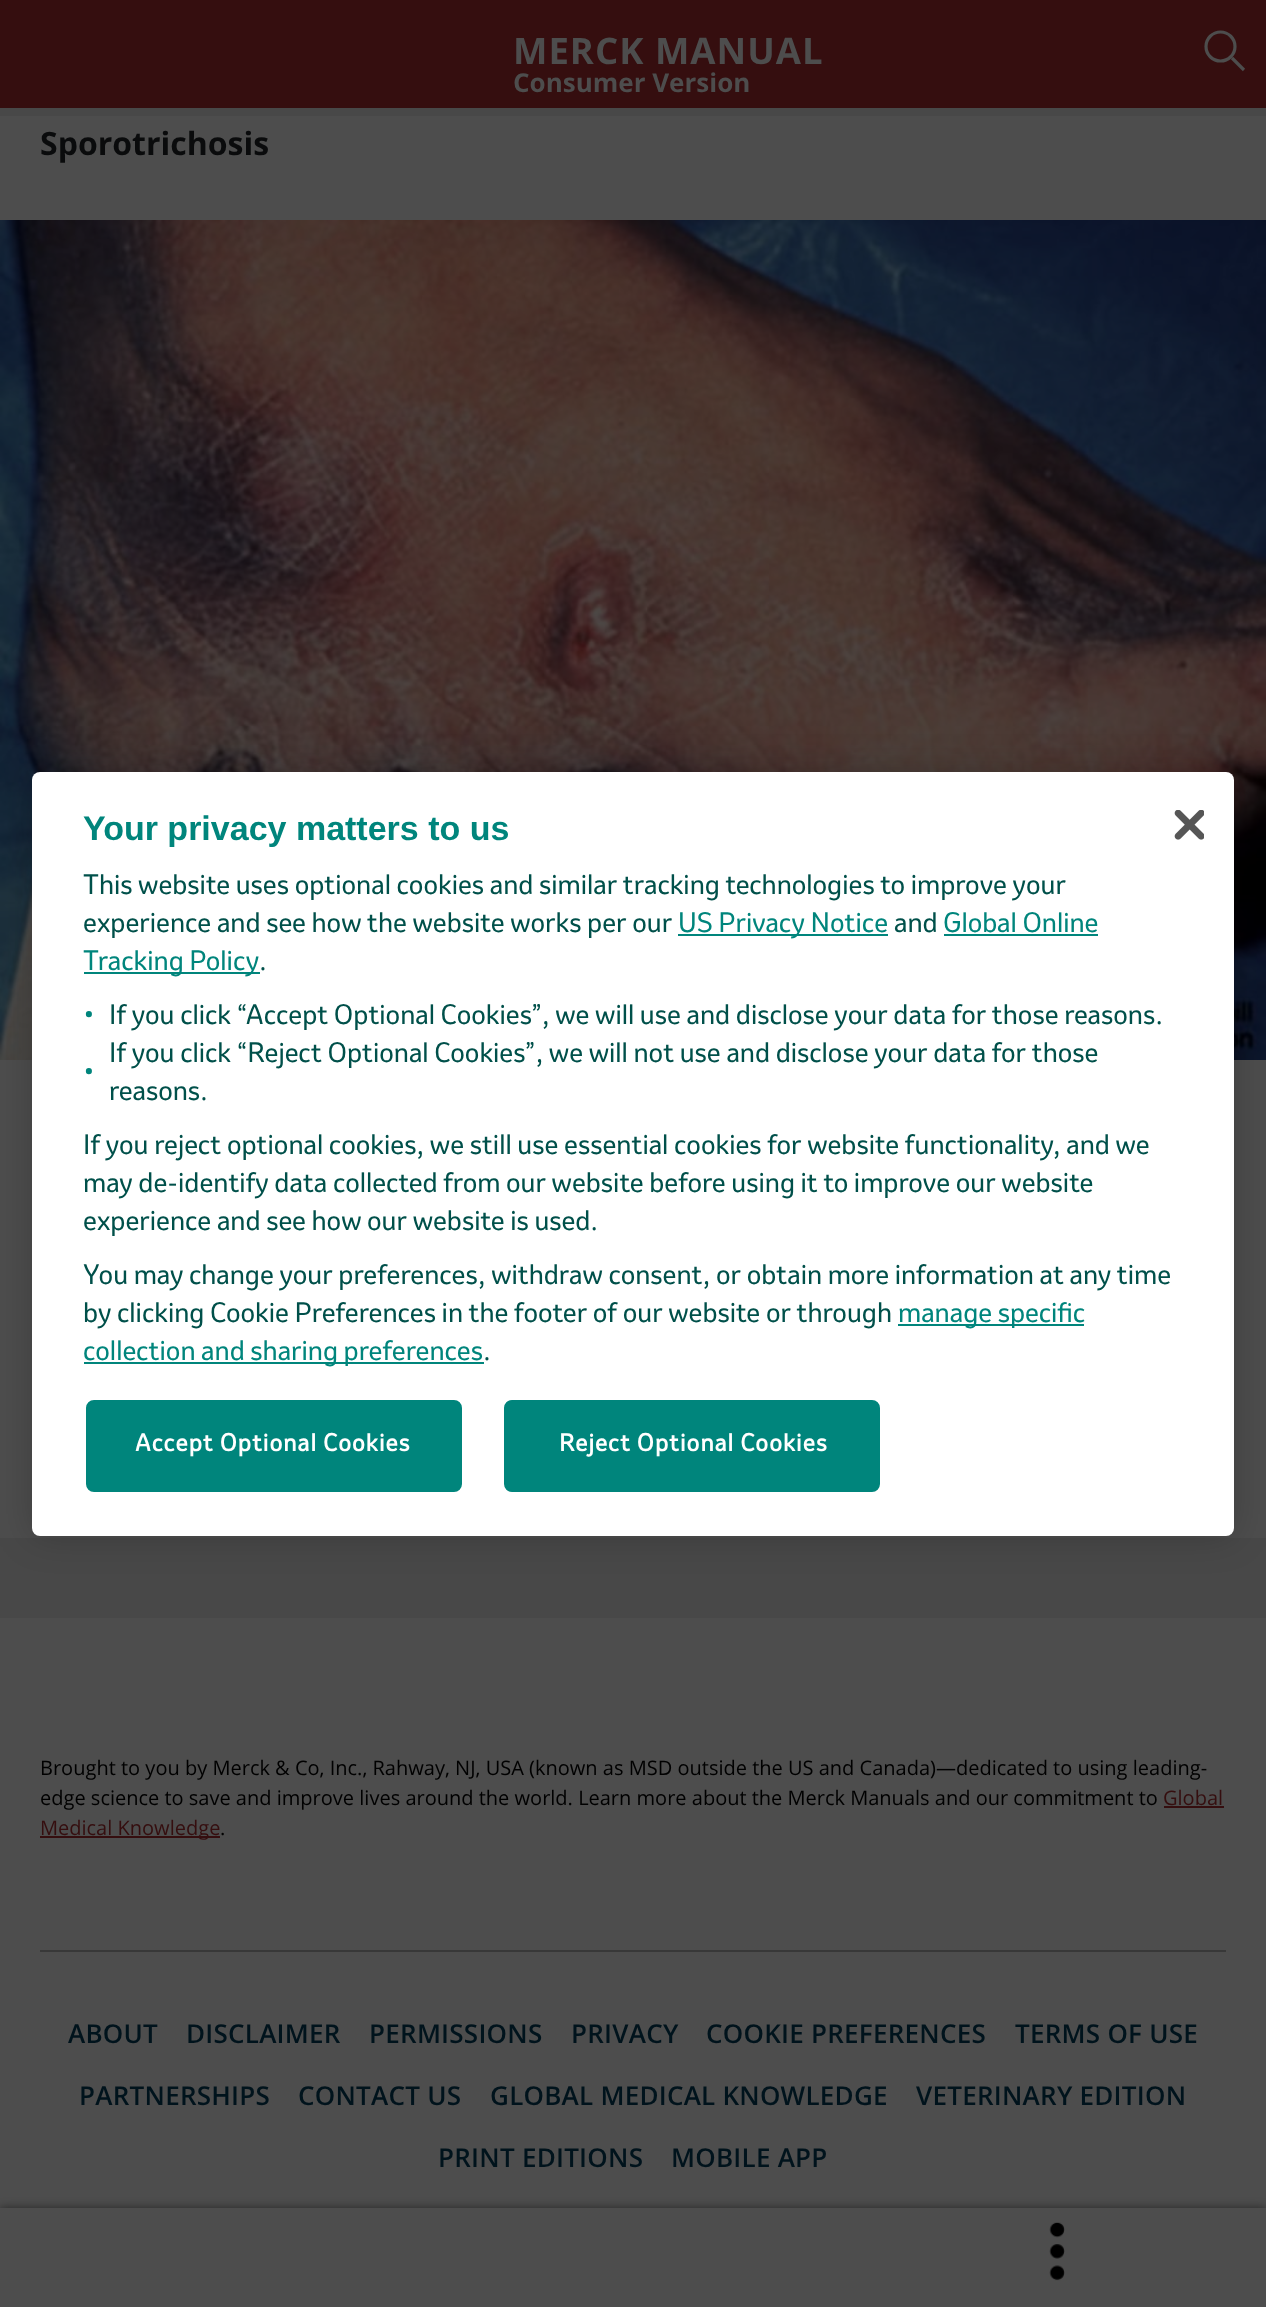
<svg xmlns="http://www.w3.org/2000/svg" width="1266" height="2307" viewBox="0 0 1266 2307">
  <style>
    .t1 { font: bold 36.5px Open Sans; letter-spacing: 1px; fill: #4d4d4d; }
    .t2 { font: bold 26px Open Sans; fill: #4d4d4d; }
    .t3 { font: bold 32px Open Sans; fill: #0a0b0c; }
    .t4 { font: 20px Open Sans; fill: #000; }
    .t5 { font: 20px Open Sans; fill: #350e0f; }
    .t6 { font: 600 26px Open Sans; letter-spacing: 0.25px; fill: #00131c; }
    .t7 { font: bold 34px Liberation Sans; fill: #00857c; }
    .t8 { font: 26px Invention; fill: #00504a; }
    .t9 { font: 26px Invention; fill: #00857c; }
    .t10 { font: 31px Invention; fill: #00857c; }
    .t11 { font: bold 22.75px Invention; letter-spacing: 1.1px; fill: #fff; }
  </style>
  <rect width="100%" height="100%" fill="#484848"/>
  <rect x="0" y="0" width="1266" height="108" fill="#350e0f"/>
  <text x="513" y="64" class="t1">MERCK MANUAL</text>
  <text x="513" y="92" class="t2">Consumer Version</text>
  <circle cx="1220.5" cy="46.5" r="14.5" fill="none" stroke="#4d4d4d" stroke-width="3.2"/>
  <path d="M1244 70L1232 58" fill="none" stroke="#4d4d4d" stroke-width="3.2"/>
  <rect x="0" y="116" width="1266" height="1422" fill="#4d4d4d"/>
  <text x="40" y="155" class="t3">Sporotrichosis</text>
  <image x="0" y="220" width="1266" height="840" href="images/1.png"/>
  <rect x="0" y="1618" width="1266" height="590" fill="#4d4d4d"/>
  <rect x="40" y="1950" width="1186" height="2" fill="#383838"/>
  <text x="40" y="1775" class="t4">Brought to you by Merck &amp; Co, Inc., Rahway, NJ, USA (known as MSD outside the US and Canada)—dedicated to using leading-</text>
  <text x="40" y="1805" class="t4">edge science to save and improve lives around the world. Learn more about the Merck Manuals and our commitment to</text>
  <text x="1163" y="1805" class="t5">Global</text>
  <rect x="1164" y="1806" width="60" height="2" fill="#350e0f"/>
  <rect x="40" y="1836" width="180" height="2" fill="#350e0f"/>
  <text x="40" y="1835" class="t5">Medical Knowledge</text>
  <text x="220" y="1835" class="t4">.</text>
  <text x="68" y="2043" class="t6">ABOUT</text>
  <text x="186" y="2043" class="t6">DISCLAIMER</text>
  <text x="369" y="2043" class="t6">PERMISSIONS</text>
  <text x="571" y="2043" class="t6">PRIVACY</text>
  <text x="706" y="2043" class="t6">COOKIE PREFERENCES</text>
  <text x="1015" y="2043" class="t6">TERMS OF USE</text>
  <text x="79" y="2105" class="t6">PARTNERSHIPS</text>
  <text x="298" y="2105" class="t6">CONTACT US</text>
  <text x="490" y="2105" class="t6">GLOBAL MEDICAL KNOWLEDGE</text>
  <text x="916" y="2105" class="t6">VETERINARY EDITION</text>
  <text x="438" y="2167" class="t6">PRINT EDITIONS</text>
  <text x="671" y="2167" class="t6">MOBILE APP</text>
  <rect x="0" y="2208" width="1266" height="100" fill="#00000080" filter="blur(5px)"/>
  <rect x="0" y="2208" width="1266" height="99" fill="#4d4d4d"/>
  <image x="1049" y="2222" width="16" height="59" href="images/2.png"/>
  <rect x="32" y="772" width="1202" height="764" rx="8" fill="#00000033" filter="blur(18px)"/>
  <rect x="32" y="772" width="1202" height="764" rx="8" fill="#fff"/>
  <text x="83" y="840" class="t7">Your privacy matters to us</text>
  <text x="83" y="894" class="t8">This website uses optional cookies and similar tracking technologies to improve your</text>
  <text x="83" y="932" class="t8">experience and see how the website works per our</text>
  <rect x="678" y="934" width="210" height="2" fill="#00857c"/>
  <text x="678" y="932" class="t9">US Privacy Notice</text>
  <text x="894" y="932" class="t8">and</text>
  <text x="943" y="932" class="t9">Global Online</text>
  <rect x="944" y="934" width="154" height="2" fill="#00857c"/>
  <rect x="84" y="972" width="176" height="2" fill="#00857c"/>
  <text x="83" y="970" class="t9">Tracking Policy</text>
  <text x="259" y="970" class="t8">.</text>
  <text x="83" y="1023" class="t10">•</text>
  <text x="109" y="1024" class="t8">If you click “Accept Optional Cookies”, we will use and disclose your data for those reasons.</text>
  <text x="109" y="1062" class="t8">If you click “Reject Optional Cookies”, we will not use and disclose your data for those</text>
  <text x="83" y="1080" class="t10">•</text>
  <text x="109" y="1100" class="t8">reasons.</text>
  <text x="83" y="1154" class="t8">If you reject optional cookies, we still use essential cookies for website functionality, and we</text>
  <text x="83" y="1192" class="t8">may de-identify data collected from our website before using it to improve our website</text>
  <text x="83" y="1230" class="t8">experience and see how our website is used.</text>
  <text x="83" y="1284" class="t8">You may change your preferences, withdraw consent, or obtain more information at any time</text>
  <text x="83" y="1322" class="t8">by clicking Cookie Preferences in the footer of our website or through</text>
  <rect x="898" y="1324" width="186" height="2" fill="#00857c"/>
  <text x="898" y="1322" class="t9">manage specific</text>
  <rect x="84" y="1362" width="400" height="2" fill="#00857c"/>
  <text x="83" y="1360" class="t9">collection and sharing preferences</text>
  <text x="483" y="1360" class="t8">.</text>
  <image x="1174" y="810" width="30" height="30" href="images/3.png"/>
  <rect x="87" y="1401" width="374" height="90" rx="7" fill="#00857c" stroke="#00857c" stroke-width="2"/>
  <text x="135" y="1451" class="t11">Accept Optional Cookies</text>
  <rect x="505" y="1401" width="374" height="90" rx="7" fill="#00857c" stroke="#00857c" stroke-width="2"/>
  <text x="559" y="1451" class="t11">Reject Optional Cookies</text>
</svg>
